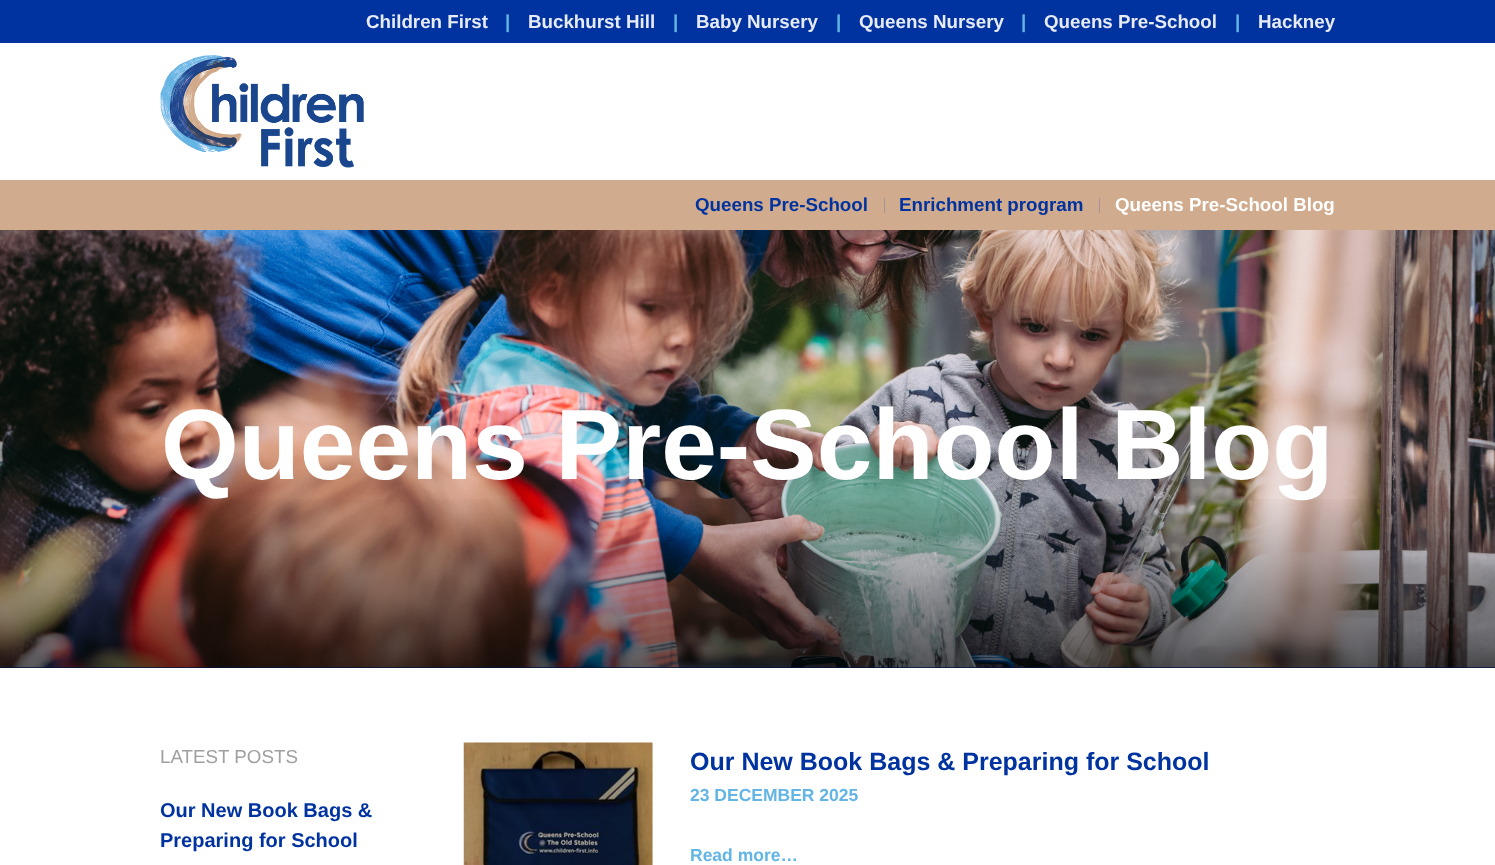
<svg xmlns="http://www.w3.org/2000/svg" width="1495" height="865" viewBox="0 0 1495 865">
  <style>
    .t1 { font: bold 18.75px Liberation Sans; fill: #e6ebf6; }
    .t2 { font: bold 18.75px Liberation Sans; fill: #62b5e5; }
    .t3 { font: bold 18.75px Liberation Sans; fill: #0033a0; }
    .t4 { font: bold 18.75px Liberation Sans; fill: #fff; }
    .t5 { font: bold 100px Liberation Sans; fill: #fff; }
    .t6 { font: 18.75px Liberation Sans; fill: #a0a0a0; }
    .t7 { font: bold 20px Liberation Sans; fill: #0033a0; }
    .t8 { font: bold 25px Liberation Sans; fill: #0033a0; }
    .t9 { font: bold 17.5px Liberation Sans; fill: #62b5e5; }
  </style>
  <defs>
    <linearGradient id="g1" gradientUnits="userSpaceOnUse" x1="748" y1="230" x2="748" y2="668"><stop offset="0" stop-color="#000" stop-opacity="0"/><stop offset="0.6" stop-color="#000" stop-opacity="0"/><stop offset="1" stop-color="#000" stop-opacity="0.6"/></linearGradient>
  </defs>
  <rect width="100%" height="100%" fill="#fff"/>
  <rect x="0" y="0" width="1495" height="43" fill="#0033a0"/>
  <text x="366" y="28" class="t1">Children First</text>
  <text x="505" y="28" class="t2">|</text>
  <text x="528" y="28" class="t1">Buckhurst Hill</text>
  <text x="673" y="28" class="t2">|</text>
  <text x="696" y="28" class="t1">Baby Nursery</text>
  <text x="836" y="28" class="t2">|</text>
  <text x="859" y="28" class="t1">Queens Nursery</text>
  <text x="1021" y="28" class="t2">|</text>
  <text x="1044" y="28" class="t1">Queens Pre-School</text>
  <text x="1235" y="28" class="t2">|</text>
  <text x="1258" y="28" class="t1">Hackney</text>
  <image x="160" y="55" width="204" height="113" href="images/1.png"/>
  <rect x="0" y="180" width="1495" height="50" fill="#d0ab8e"/>
  <text x="695" y="211" class="t3">Queens Pre-School</text>
  <rect x="884" y="198" width="1" height="15" fill="#a69392"/>
  <text x="899" y="211" class="t3">Enrichment program</text>
  <rect x="1099" y="198" width="1" height="15" fill="#a69392"/>
  <text x="1115" y="211" class="t4">Queens Pre-School Blog</text>
  <rect x="0" y="667" width="1495" height="1" fill="#0033a0"/>
  <image x="0" y="230" width="1495" height="438" href="images/2.png"/>
  <rect x="0" y="499" width="1495" height="169" fill="url(#g1)"/>
  <text x="161" y="479" class="t5">Queens Pre-School Blog</text>
  <text x="160" y="763" class="t6">LATEST POSTS</text>
  <text x="160" y="817" class="t7">Our New Book Bags &amp;</text>
  <text x="160" y="847" class="t7">Preparing for School</text>
  <rect x="652" y="743" width="1" height="122" fill="#f1f1f1"/>
  <image x="463" y="742" width="190" height="123" href="images/3.png"/>
  <text x="690" y="770" class="t8">Our New Book Bags &amp; Preparing for School</text>
  <text x="690" y="801" class="t9">23 DECEMBER 2025</text>
  <text x="690" y="861" class="t9">Read more…</text>
</svg>
